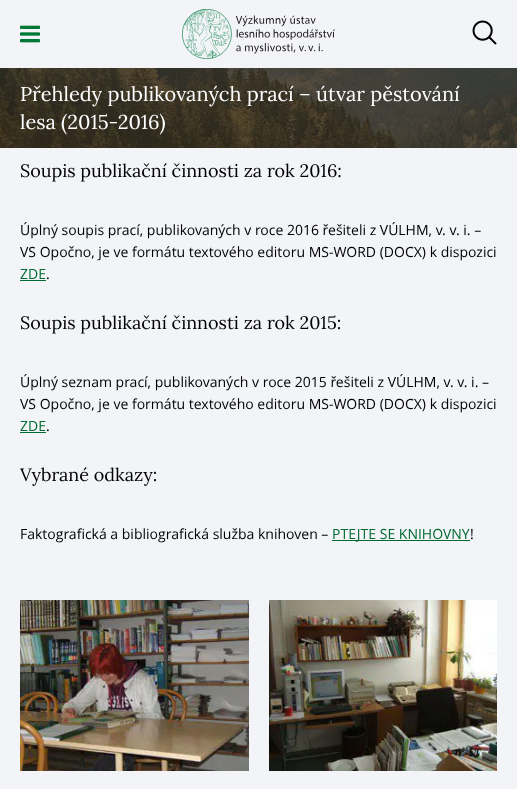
<svg xmlns="http://www.w3.org/2000/svg" width="517" height="789" viewBox="0 0 517 789">
  <style>
    .t1 { font: 20px Lora; fill: #fff; }
    .t2 { font: 18px Lora; fill: #000; }
    .t3 { font: 14px Open Sans; fill: #000; }
    .t4 { font: 14px Open Sans; fill: #006a30; }
  </style>
  <rect width="100%" height="100%" fill="#f2f4f7"/>
  <image x="20" y="25" width="20" height="18" href="images/1.png"/>
  <image x="182" y="9" width="153" height="50" href="images/2.png"/>
  <image x="472" y="20" width="25" height="25" href="images/3.png"/>
  <image x="0" y="68" width="517" height="80" href="images/4.png"/>
  <text x="20" y="101" class="t1">Přehledy publikovaných prací – útvar pěstování</text>
  <text x="20" y="129" class="t1">lesa (2015-2016)</text>
  <text x="20" y="177" class="t2">Soupis publikační činnosti za rok 2016:</text>
  <text x="20" y="235" class="t3">Úplný soupis prací, publikovaných v roce 2016 řešiteli z VÚLHM, v. v. i. –</text>
  <text x="20" y="257" class="t3">VS Opočno, je ve formátu textového editoru MS-WORD (DOCX) k dispozici</text>
  <text x="20" y="279" class="t4">ZDE</text>
  <rect x="20" y="280" width="26" height="1" fill="#006a30"/>
  <text x="46" y="279" class="t3">.</text>
  <text x="20" y="329" class="t2">Soupis publikační činnosti za rok 2015:</text>
  <text x="20" y="387" class="t3">Úplný seznam prací, publikovaných v roce 2015 řešiteli z VÚLHM, v. v. i. –</text>
  <text x="20" y="409" class="t3">VS Opočno, je ve formátu textového editoru MS-WORD (DOCX) k dispozici</text>
  <text x="20" y="431" class="t4">ZDE</text>
  <rect x="20" y="432" width="26" height="1" fill="#006a30"/>
  <text x="46" y="431" class="t3">.</text>
  <text x="20" y="481" class="t2">Vybrané odkazy:</text>
  <text x="20" y="539" class="t3">Faktografická a bibliografická služba knihoven –</text>
  <rect x="332" y="540" width="138" height="1" fill="#006a30"/>
  <text x="332" y="539" class="t4">PTEJTE SE KNIHOVNY</text>
  <text x="470" y="539" class="t3">!</text>
  <image x="20" y="600" width="229" height="171" href="images/5.png"/>
  <image x="269" y="600" width="228" height="171" href="images/6.png"/>
</svg>
